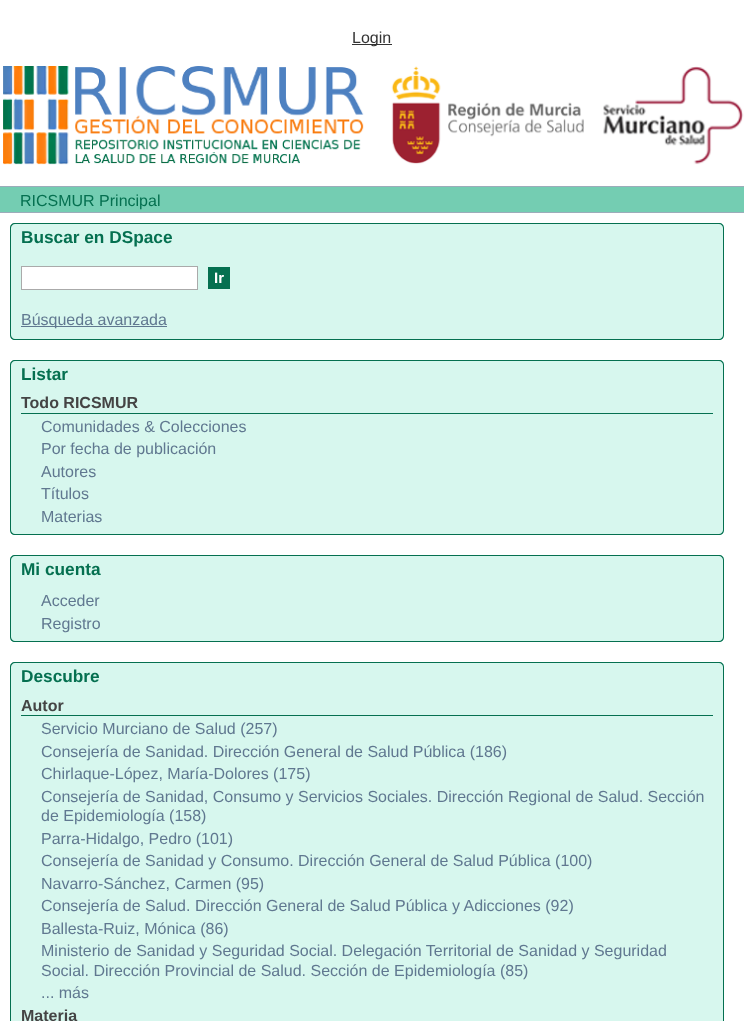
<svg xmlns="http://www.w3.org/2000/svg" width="744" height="1021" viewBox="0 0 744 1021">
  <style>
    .t1 { font: 16px Liberation Sans; fill: #333; }
    .t2 { font: 16px Liberation Sans; fill: #057050; }
    .t3 { font: bold 17.25px Liberation Sans; fill: #057050; }
    .t4 { font: bold 15px Liberation Sans; fill: #fff; }
    .t5 { font: 16px Liberation Sans; fill: #607890; }
    .t6 { font: bold 16px Liberation Sans; fill: #444; }
  </style>
  <rect width="100%" height="100%" fill="#fff"/>
  <rect x="352" y="44" width="40" height="1" fill="#333"/>
  <text x="352" y="43" class="t1">Login</text>
  <image x="3" y="66" width="741" height="99" href="images/1.png"/>
  <rect x="0" y="187" width="744" height="25" fill="#74cdb2"/>
  <rect x="0" y="186" width="744" height="1" fill="#9cacba"/>
  <rect x="0" y="212" width="744" height="1" fill="#9cacba"/>
  <text x="20" y="206" class="t2">RICSMUR Principal</text>
  <path d="M15 223H719C722 223 724 225 724 228V251H10V228C10 225 12 223 15 223Z" fill="#d7f7ee"/>
  <path d="M15 223H719C722 223 724 225 724 228V251H10V228C10 225 12 223 15 223ZM15 224H719C721 224 723 226 723 228V251H11V228C11 226 13 224 15 224Z" fill="#057050" fill-rule="evenodd"/>
  <text x="21" y="243" class="t3">Buscar en DSpace</text>
  <path d="M10 251H724V335C724 338 722 340 719 340H15C12 340 10 338 10 335Z" fill="#d7f7ee"/>
  <path d="M10 251H724V335C724 338 722 340 719 340H15C12 340 10 338 10 335ZM11 251H723V335C723 337 721 339 719 339H15C13 339 11 337 11 335Z" fill="#057050" fill-rule="evenodd"/>
  <rect x="21.5" y="266.5" width="176" height="23" fill="#fff" stroke="#aaa"/>
  <rect x="208" y="267" width="22" height="22" fill="#057050"/>
  <text x="214" y="283" class="t4">Ir</text>
  <rect x="21" y="326" width="146" height="1" fill="#607890"/>
  <text x="21" y="325" class="t5">Búsqueda avanzada</text>
  <path d="M15 360H719C722 360 724 362 724 365V388H10V365C10 362 12 360 15 360Z" fill="#d7f7ee"/>
  <path d="M15 360H719C722 360 724 362 724 365V388H10V365C10 362 12 360 15 360ZM15 361H719C721 361 723 363 723 365V388H11V365C11 363 13 361 15 361Z" fill="#057050" fill-rule="evenodd"/>
  <text x="21" y="380" class="t3">Listar</text>
  <path d="M10 388H724V530C724 533 722 535 719 535H15C12 535 10 533 10 530Z" fill="#d7f7ee"/>
  <path d="M10 388H724V530C724 533 722 535 719 535H15C12 535 10 533 10 530ZM11 388H723V530C723 532 721 534 719 534H15C13 534 11 532 11 530Z" fill="#057050" fill-rule="evenodd"/>
  <rect x="21" y="413" width="692" height="1" fill="#057050"/>
  <text x="21" y="408" class="t6">Todo RICSMUR</text>
  <text x="41" y="432" class="t5">Comunidades &amp; Colecciones</text>
  <text x="41" y="454" class="t5">Por fecha de publicación</text>
  <text x="41" y="477" class="t5">Autores</text>
  <text x="41" y="499" class="t5">Títulos</text>
  <text x="41" y="522" class="t5">Materias</text>
  <path d="M15 555H719C722 555 724 557 724 560V583H10V560C10 557 12 555 15 555Z" fill="#d7f7ee"/>
  <path d="M15 555H719C722 555 724 557 724 560V583H10V560C10 557 12 555 15 555ZM15 556H719C721 556 723 558 723 560V583H11V560C11 558 13 556 15 556Z" fill="#057050" fill-rule="evenodd"/>
  <text x="21" y="575" class="t3">Mi cuenta</text>
  <path d="M10 583H724V637C724 640 722 642 719 642H15C12 642 10 640 10 637Z" fill="#d7f7ee"/>
  <path d="M10 583H724V637C724 640 722 642 719 642H15C12 642 10 640 10 637ZM11 583H723V637C723 639 721 641 719 641H15C13 641 11 639 11 637Z" fill="#057050" fill-rule="evenodd"/>
  <text x="41" y="606" class="t5">Acceder</text>
  <text x="41" y="629" class="t5">Registro</text>
  <path d="M15 662H719C722 662 724 664 724 667V691H10V667C10 664 12 662 15 662Z" fill="#d7f7ee"/>
  <path d="M15 662H719C722 662 724 664 724 667V691H10V667C10 664 12 662 15 662ZM15 663H719C721 663 723 665 723 667V691H11V667C11 665 13 663 15 663Z" fill="#057050" fill-rule="evenodd"/>
  <text x="21" y="682" class="t3">Descubre</text>
  <rect x="11" y="691" width="712" height="330" fill="#d7f7ee"/>
  <path d="M10 691H724V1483C724 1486 722 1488 719 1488H15C12 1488 10 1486 10 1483ZM11 691H723V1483C723 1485 721 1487 719 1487H15C13 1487 11 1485 11 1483Z" fill="#057050" fill-rule="evenodd"/>
  <rect x="21" y="715" width="692" height="1" fill="#057050"/>
  <text x="21" y="711" class="t6">Autor</text>
  <text x="41" y="734" class="t5">Servicio Murciano de Salud (257)</text>
  <text x="41" y="757" class="t5">Consejería de Sanidad. Dirección General de Salud Pública (186)</text>
  <text x="41" y="779" class="t5">Chirlaque-López, María-Dolores (175)</text>
  <text x="41" y="802" class="t5">Consejería de Sanidad, Consumo y Servicios Sociales. Dirección Regional de Salud. Sección</text>
  <text x="41" y="821" class="t5">de Epidemiología (158)</text>
  <text x="41" y="844" class="t5">Parra-Hidalgo, Pedro (101)</text>
  <text x="41" y="866" class="t5">Consejería de Sanidad y Consumo. Dirección General de Salud Pública (100)</text>
  <text x="41" y="889" class="t5">Navarro-Sánchez, Carmen (95)</text>
  <text x="41" y="911" class="t5">Consejería de Salud. Dirección General de Salud Pública y Adicciones (92)</text>
  <text x="41" y="934" class="t5">Ballesta-Ruiz, Mónica (86)</text>
  <text x="41" y="956" class="t5">Ministerio de Sanidad y Seguridad Social. Delegación Territorial de Sanidad y Seguridad</text>
  <text x="41" y="976" class="t5">Social. Dirección Provincial de Salud. Sección de Epidemiología (85)</text>
  <text x="41" y="998" class="t5">... más</text>
  <text x="21" y="1021" class="t6">Materia</text>
</svg>
